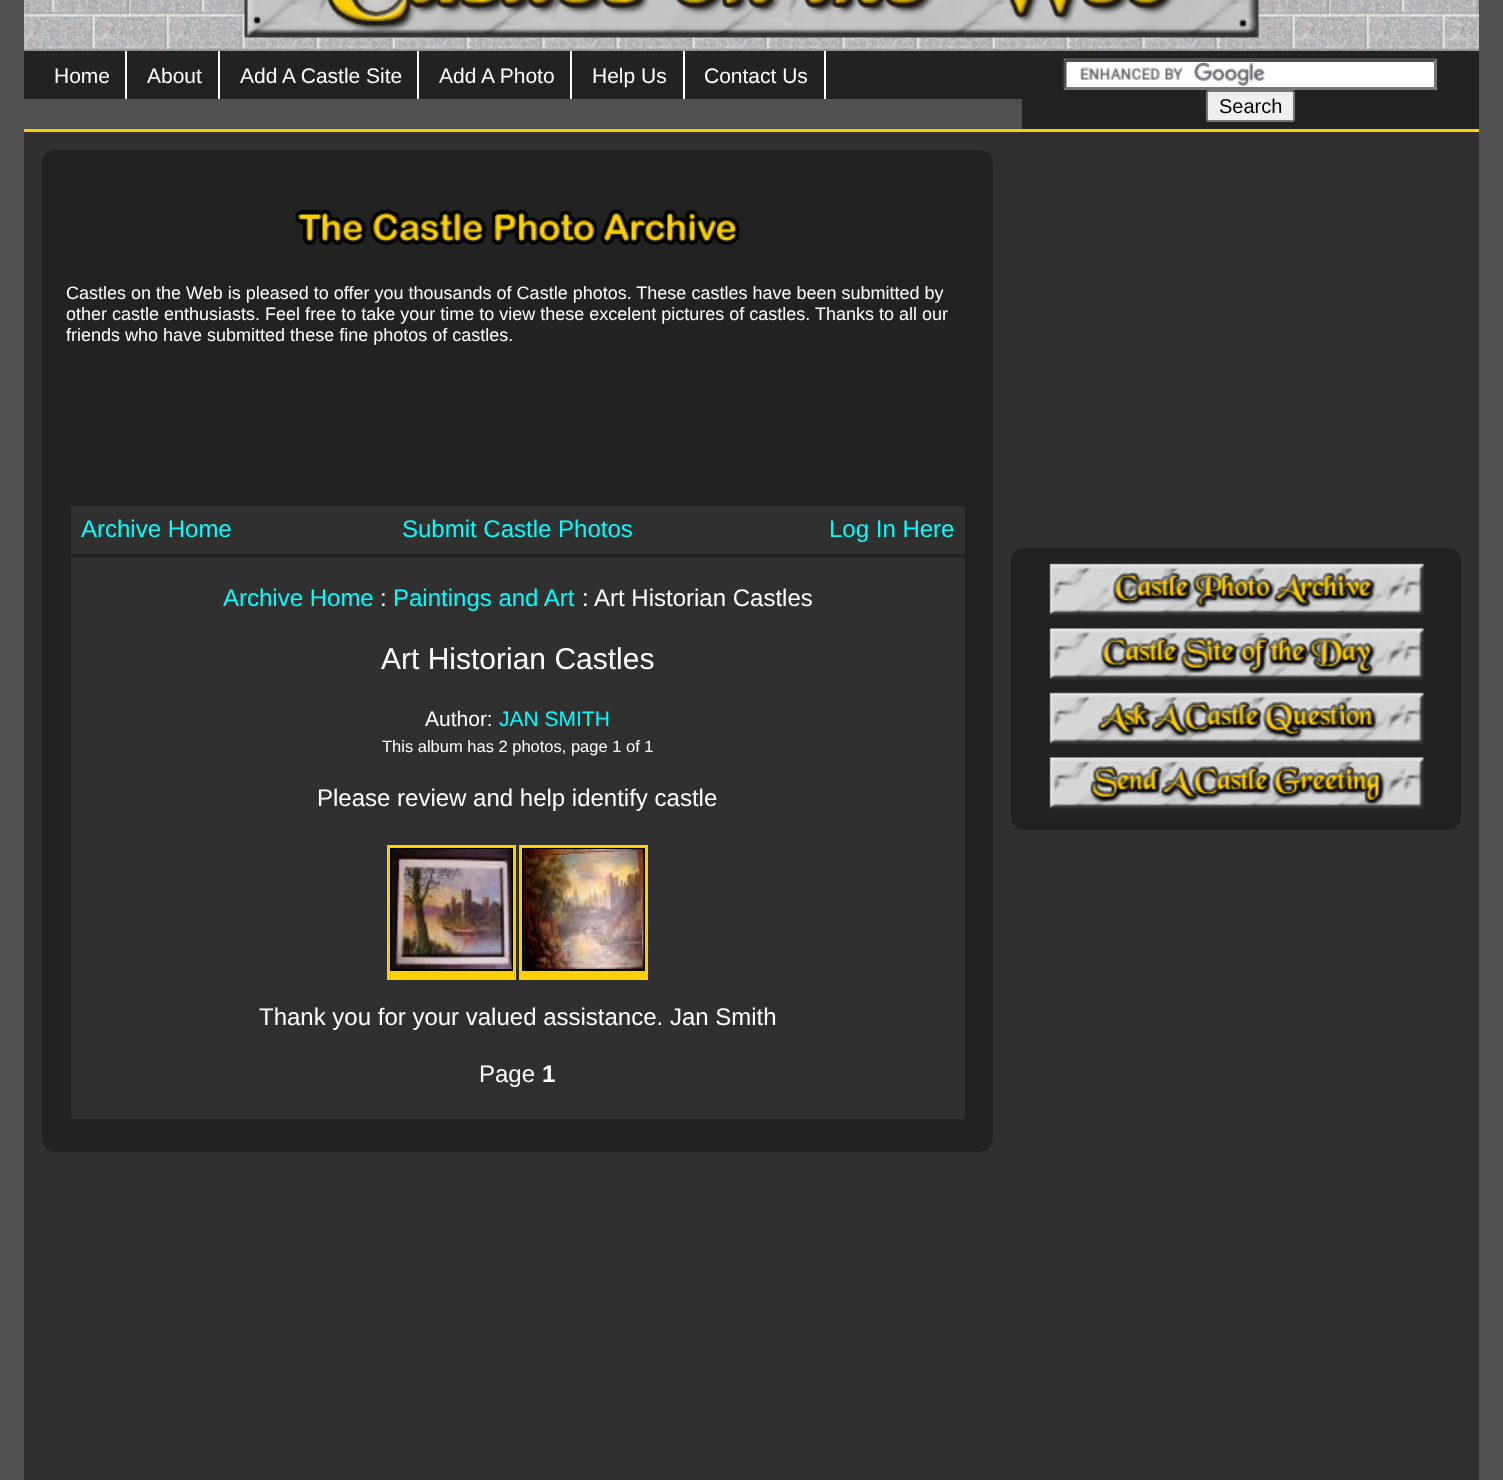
<svg xmlns="http://www.w3.org/2000/svg" width="1503" height="1480" viewBox="0 0 1503 1480">
  <style>
    .t1 { font: 21px Liberation Sans; fill: #fff; }
    .t2 { font: 20px Liberation Sans; fill: #000; }
    .t3 { font: 18px Liberation Sans; fill: #fff; }
    .t4 { font: 24px Liberation Sans; fill: #0ff; }
    .t5 { font: 24px Liberation Sans; fill: #fff; }
    .t6 { font: 30px Liberation Sans; fill: #fff; }
    .t7 { font: 21px Liberation Sans; fill: #0ff; }
    .t8 { font: 16.5px Liberation Sans; fill: #fff; }
    .t9 { font: bold 24px Liberation Sans; fill: #fff; }
  </style>
  <rect width="100%" height="100%" fill="#505050"/>
  <image x="24" y="0" width="1455" height="51" href="images/1.png"/>
  <image x="244" y="0" width="1015" height="38" href="images/2.png"/>
  <rect x="24" y="51" width="998" height="48" fill="#222"/>
  <text x="54" y="83" class="t1">Home</text>
  <rect x="125" y="51" width="2" height="48" fill="#fff"/>
  <text x="147" y="83" class="t1">About</text>
  <rect x="218" y="51" width="2" height="48" fill="#fff"/>
  <text x="240" y="83" class="t1">Add A Castle Site</text>
  <rect x="417" y="51" width="2" height="48" fill="#fff"/>
  <text x="439" y="83" class="t1">Add A Photo</text>
  <rect x="570" y="51" width="2" height="48" fill="#fff"/>
  <text x="592" y="83" class="t1">Help Us</text>
  <rect x="683" y="51" width="2" height="48" fill="#fff"/>
  <text x="704" y="83" class="t1">Contact Us</text>
  <rect x="824" y="51" width="2" height="48" fill="#fff"/>
  <rect x="1022" y="51" width="457" height="78" fill="#222"/>
  <rect x="1064" y="59" width="373" height="31" fill="#fff"/>
  <image x="1080" y="63" width="185" height="23" href="images/3.png"/>
  <path d="M1064 58H1437L1434 62H1066Z" fill="#4f4f4f"/>
  <path d="M1437 58.5V90L1434 87V61.5Z" fill="#767676"/>
  <path d="M1437 90H1064L1066 87H1434Z" fill="#767676"/>
  <path d="M1063.5 90V58.5L1066.5 61.5V87Z" fill="#4f4f4f"/>
  <rect x="1207" y="91" width="87" height="30" rx="2" fill="#efefef" stroke="#767676" stroke-width="2"/>
  <text x="1219" y="113" class="t2">Search</text>
  <rect x="24" y="132" width="1455" height="1348" fill="#303030"/>
  <rect x="24" y="129" width="1455" height="3" fill="#facf05"/>
  <rect x="42" y="150" width="951" height="1002" rx="14" fill="#222"/>
  <image x="295" y="209" width="445" height="36" href="images/4.png"/>
  <text x="66" y="299" class="t3">Castles on the Web is pleased to offer you thousands of Castle photos. These castles have been submitted by</text>
  <text x="66" y="320" class="t3">other castle enthusiasts. Feel free to take your time to view these excelent pictures of castles. Thanks to all our</text>
  <text x="66" y="341" class="t3">friends who have submitted these fine photos of castles.</text>
  <rect x="71" y="506" width="894" height="48" fill="#303030"/>
  <text x="81" y="537" class="t4">Archive Home</text>
  <text x="402" y="537" class="t4">Submit Castle Photos</text>
  <text x="829" y="537" class="t4">Log In Here</text>
  <rect x="71" y="557" width="894" height="562" fill="#303030"/>
  <text x="223" y="606" class="t4">Archive Home</text>
  <text x="380" y="606" class="t5">:</text>
  <text x="393" y="606" class="t4">Paintings and Art</text>
  <text x="582" y="606" class="t5">: Art Historian Castles</text>
  <text x="381" y="669" class="t6">Art Historian Castles</text>
  <text x="425" y="726" class="t1">Author:</text>
  <text x="499" y="726" class="t7">JAN SMITH</text>
  <text x="382" y="752" class="t8">This album has 2 photos, page 1 of 1</text>
  <text x="317" y="806" class="t5">Please review and help identify castle</text>
  <rect x="387" y="845" width="129" height="135" fill="#facf05"/>
  <rect x="391" y="849" width="121" height="121" fill="none" stroke="#000" stroke-width="2"/>
  <image x="391" y="849" width="121" height="120" href="images/5.png"/>
  <rect x="519" y="845" width="129" height="135" fill="#facf05"/>
  <rect x="523" y="849" width="121" height="121" fill="none" stroke="#000" stroke-width="2"/>
  <image x="523" y="849" width="121" height="120" href="images/6.png"/>
  <text x="259" y="1025" class="t5">Thank you for your valued assistance. Jan Smith</text>
  <text x="479" y="1082" class="t5">Page</text>
  <text x="542" y="1082" class="t9">1</text>
  <rect x="1011" y="548" width="450" height="282" rx="14" fill="#222"/>
  <image x="1049" y="563" width="375" height="52" href="images/7.png"/>
  <image x="1049" y="628" width="375" height="52" href="images/8.png"/>
  <image x="1049" y="692" width="375" height="52" href="images/9.png"/>
  <image x="1049" y="757" width="375" height="52" href="images/10.png"/>
</svg>
